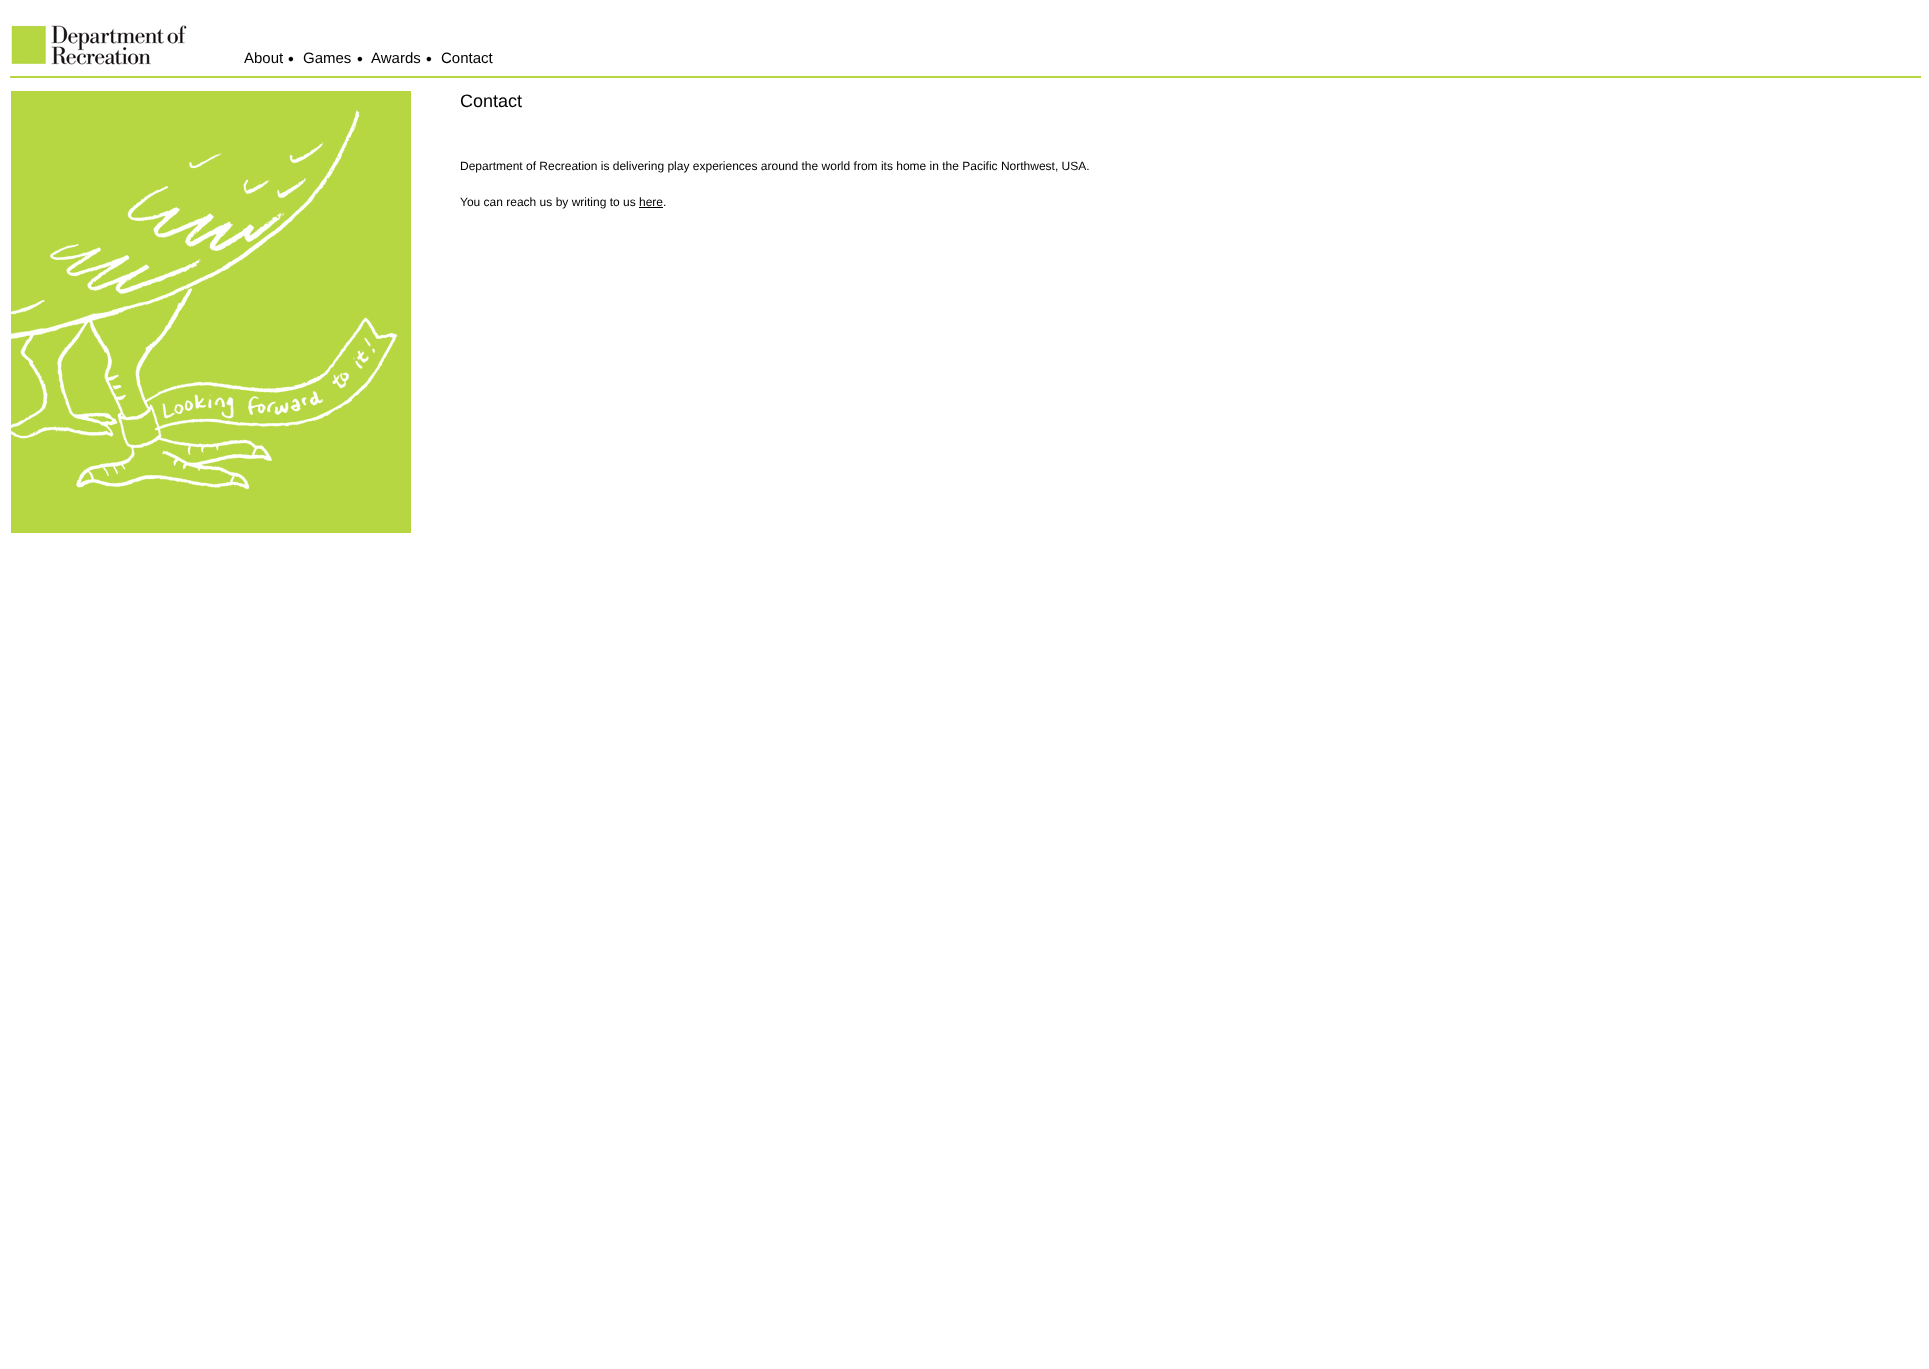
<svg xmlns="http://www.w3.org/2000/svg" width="1929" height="1369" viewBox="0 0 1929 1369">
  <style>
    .t1 { font: 15px Liberation Sans; fill: #000; }
    .t2 { font: 18px Liberation Sans; fill: #000; }
    .t3 { font: 12px Liberation Sans; fill: #000; }
  </style>
  <rect width="100%" height="100%" fill="#fff"/>
  <image x="11" y="25" width="176" height="40" href="images/1.png"/>
  <text x="244" y="63" class="t1">About</text>
  <image x="288" y="56" width="6" height="6" href="images/2.png"/>
  <text x="303" y="63" class="t1">Games</text>
  <image x="357" y="56" width="6" height="6" href="images/2.png"/>
  <text x="371" y="63" class="t1">Awards</text>
  <image x="426" y="56" width="6" height="6" href="images/2.png"/>
  <text x="441" y="63" class="t1">Contact</text>
  <rect x="10" y="76" width="1911" height="2" fill="#b6d742"/>
  <image x="11" y="91" width="400" height="442" href="images/3.png"/>
  <text x="460" y="107" class="t2">Contact</text>
  <text x="460" y="170" class="t3">Department of Recreation is delivering play experiences around the world from its home in the Pacific Northwest, USA.</text>
  <text x="460" y="206" class="t3">You can reach us by writing to us here.</text>
  <rect x="639" y="207" width="24" height="1" fill="#000"/>
</svg>
